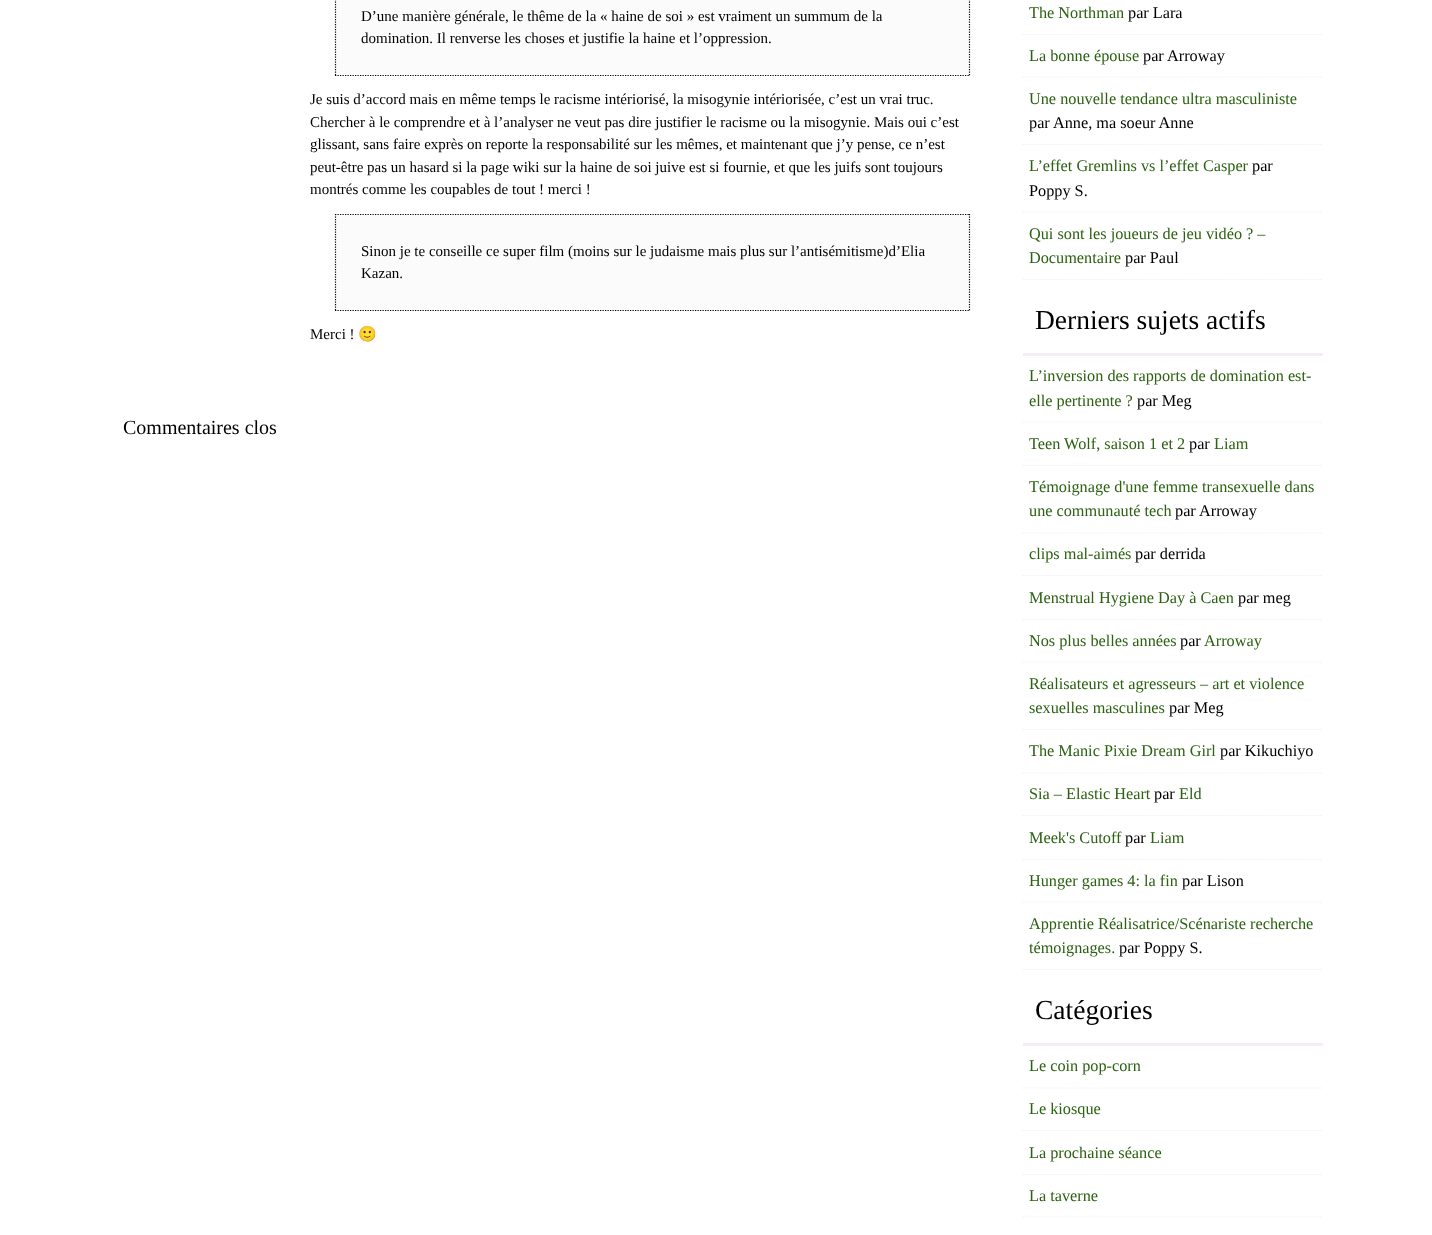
<svg xmlns="http://www.w3.org/2000/svg" width="1432" height="1235" viewBox="0 0 1432 1235">
  <style>
    .t1 { font: 15px Liberation Serif; fill: #000; }
    .t2 { font: 15px Noto Color Emoji; fill: #000; }
    .t3 { font: 20px Liberation Serif; fill: #000; }
    .t4 { font: 16.25px Liberation Serif; fill: #2b6111; }
    .t5 { font: 16.25px Liberation Serif; fill: #000; }
    .t6 { font: 27.5px Liberation Serif; fill: #000; }
  </style>
  <defs>
    <clipPath id="clip1"><rect x="1023" y="0" width="300" height="280"/></clipPath>
    <clipPath id="clip2"><rect x="1023" y="293" width="300" height="677"/></clipPath>
  </defs>
  <rect width="100%" height="100%" fill="#fff"/>
  <rect x="335" y="0" width="635" height="76" fill="#fbfbfb"/>
  <path d="M969.5-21V76" fill="none" stroke="#030303" stroke-width="1.2" stroke-dasharray="1.25 1.25"/>
  <path d="M335 75.5H970" fill="none" stroke="#030303" stroke-width="1.2" stroke-dasharray="1.25 1.25"/>
  <path d="M335.5-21V76" fill="none" stroke="#030303" stroke-width="1.2" stroke-dasharray="1.25 1.25"/>
  <text x="361" y="21" class="t1">D’une manière générale, le thême de la « haine de soi » est vraiment un summum de la</text>
  <text x="361" y="43" class="t1">domination. Il renverse les choses et justifie la haine et l’oppression.</text>
  <text x="310" y="104" class="t1">Je suis d’accord mais en même temps le racisme intériorisé, la misogynie intériorisée, c’est un vrai truc.</text>
  <text x="310" y="127" class="t1">Chercher à le comprendre et à l’analyser ne veut pas dire justifier le racisme ou la misogynie. Mais oui c’est</text>
  <text x="310" y="149" class="t1">glissant, sans faire exprès on reporte la responsabilité sur les mêmes, et maintenant que j’y pense, ce n’est</text>
  <text x="310" y="172" class="t1">peut-être pas un hasard si la page wiki sur la haine de soi juive est si fournie, et que les juifs sont toujours</text>
  <text x="310" y="194" class="t1">montrés comme les coupables de tout ! merci !</text>
  <rect x="335" y="214" width="635" height="97" fill="#fbfbfb"/>
  <path d="M335 214.5H970" fill="none" stroke="#030303" stroke-width="1.2" stroke-dasharray="1.25 1.25"/>
  <path d="M969.5 214V311" fill="none" stroke="#030303" stroke-width="1.2" stroke-dasharray="1.25 1.25"/>
  <path d="M335 310.5H970" fill="none" stroke="#030303" stroke-width="1.2" stroke-dasharray="1.25 1.25"/>
  <path d="M335.5 214V311" fill="none" stroke="#030303" stroke-width="1.2" stroke-dasharray="1.25 1.25"/>
  <text x="361" y="256" class="t1">Sinon je te conseille ce super film (moins sur le judaisme mais plus sur l’antisémitisme)d’Elia</text>
  <text x="361" y="278" class="t1">Kazan.</text>
  <text x="310" y="339" class="t1">Merci !</text>
  <text x="358" y="339" class="t2">🙂</text>
  <text x="123" y="434" class="t3">Commentaires clos</text>
  <path d="M1022.5 34.5H1322.5" fill="none" stroke="#f5edf5" stroke-width="1.2" stroke-dasharray="1.25 1.25"/>
  <text x="1029" y="18" class="t4">The Northman</text>
  <text x="1128" y="18" class="t5">par Lara</text>
  <path d="M1022.5 77H1322.5" fill="none" stroke="#f5edf5" stroke-width="1.2" stroke-dasharray="1.25 1.25"/>
  <text x="1029" y="61" class="t4">La bonne épouse</text>
  <text x="1143" y="61" class="t5">par</text>
  <text x="1167" y="61" class="t5">Arroway</text>
  <path d="M1022.5 144.5H1322.5" fill="none" stroke="#f5edf5" stroke-width="1.2" stroke-dasharray="1.25 1.25"/>
  <text x="1029" y="104" class="t4">Une nouvelle tendance ultra masculiniste</text>
  <text x="1029" y="128" class="t5">par</text>
  <text x="1053" y="128" class="t5">Anne, ma soeur Anne</text>
  <path d="M1022.5 212H1322.5" fill="none" stroke="#f5edf5" stroke-width="1.2" stroke-dasharray="1.25 1.25"/>
  <text x="1029" y="171" class="t4">L’effet Gremlins vs l’effet Casper</text>
  <text x="1252" y="171" class="t5">par</text>
  <text x="1029" y="196" class="t5">Poppy S.</text>
  <g clip-path="url(#clip1)">
    <path d="M1022.5 279.5H1322.5" fill="none" stroke="#f5edf5" stroke-width="1.2" stroke-dasharray="1.25 1.25"/>
  </g>
  <text x="1029" y="239" class="t4">Qui sont les joueurs de jeu vidéo ? –</text>
  <text x="1029" y="263" class="t4">Documentaire</text>
  <text x="1125" y="263" class="t5">par Paul</text>
  <rect x="1023" y="353" width="300" height="3" fill="#f5edf5"/>
  <text x="1035" y="329" class="t6">Derniers sujets actifs</text>
  <path d="M1022.5 422H1322.5" fill="none" stroke="#f5edf5" stroke-width="1.2" stroke-dasharray="1.25 1.25"/>
  <text x="1029" y="381" class="t4">L’inversion des rapports de domination est-</text>
  <text x="1029" y="406" class="t4">elle pertinente ?</text>
  <text x="1137" y="406" class="t5">par Meg</text>
  <path d="M1022.5 465.5H1322.5" fill="none" stroke="#f5edf5" stroke-width="1.2" stroke-dasharray="1.25 1.25"/>
  <text x="1029" y="449" class="t4">Teen Wolf, saison 1 et 2</text>
  <text x="1189" y="449" class="t5">par</text>
  <text x="1214" y="449" class="t4">Liam</text>
  <path d="M1022.5 533H1322.5" fill="none" stroke="#f5edf5" stroke-width="1.2" stroke-dasharray="1.25 1.25"/>
  <text x="1029" y="492" class="t4">Témoignage d'une femme transexuelle dans</text>
  <text x="1029" y="516" class="t4">une communauté tech</text>
  <text x="1175" y="516" class="t5">par</text>
  <text x="1199" y="516" class="t5">Arroway</text>
  <path d="M1022.5 575.5H1322.5" fill="none" stroke="#f5edf5" stroke-width="1.2" stroke-dasharray="1.25 1.25"/>
  <text x="1029" y="559" class="t4">clips mal-aimés</text>
  <text x="1135" y="559" class="t5">par derrida</text>
  <path d="M1022.5 619.5H1322.5" fill="none" stroke="#f5edf5" stroke-width="1.2" stroke-dasharray="1.25 1.25"/>
  <text x="1029" y="603" class="t4">Menstrual Hygiene Day à Caen</text>
  <text x="1238" y="603" class="t5">par meg</text>
  <path d="M1022.5 662H1322.5" fill="none" stroke="#f5edf5" stroke-width="1.2" stroke-dasharray="1.25 1.25"/>
  <text x="1029" y="646" class="t4">Nos plus belles années</text>
  <text x="1180" y="646" class="t5">par</text>
  <text x="1204" y="646" class="t4">Arroway</text>
  <path d="M1022.5 729.5H1322.5" fill="none" stroke="#f5edf5" stroke-width="1.2" stroke-dasharray="1.25 1.25"/>
  <text x="1029" y="689" class="t4">Réalisateurs et agresseurs – art et violence</text>
  <text x="1029" y="713" class="t4">sexuelles masculines</text>
  <text x="1169" y="713" class="t5">par Meg</text>
  <path d="M1022.5 773H1322.5" fill="none" stroke="#f5edf5" stroke-width="1.2" stroke-dasharray="1.25 1.25"/>
  <text x="1029" y="756" class="t4">The Manic Pixie Dream Girl</text>
  <text x="1220" y="756" class="t5">par Kikuchiyo</text>
  <path d="M1022.5 815.5H1322.5" fill="none" stroke="#f5edf5" stroke-width="1.2" stroke-dasharray="1.25 1.25"/>
  <text x="1029" y="799" class="t4">Sia – Elastic Heart</text>
  <text x="1154" y="799" class="t5">par</text>
  <text x="1179" y="799" class="t4">Eld</text>
  <path d="M1022.5 859.5H1322.5" fill="none" stroke="#f5edf5" stroke-width="1.2" stroke-dasharray="1.25 1.25"/>
  <text x="1029" y="843" class="t4">Meek's Cutoff</text>
  <text x="1125" y="843" class="t5">par</text>
  <text x="1150" y="843" class="t4">Liam</text>
  <path d="M1022.5 902H1322.5" fill="none" stroke="#f5edf5" stroke-width="1.2" stroke-dasharray="1.25 1.25"/>
  <text x="1029" y="886" class="t4">Hunger games 4: la fin</text>
  <text x="1182" y="886" class="t5">par Lison</text>
  <g clip-path="url(#clip2)">
    <path d="M1022.5 969.5H1322.5" fill="none" stroke="#f5edf5" stroke-width="1.2" stroke-dasharray="1.25 1.25"/>
  </g>
  <text x="1029" y="929" class="t4">Apprentie Réalisatrice/Scénariste recherche</text>
  <text x="1029" y="953" class="t4">témoignages.</text>
  <text x="1119" y="953" class="t5">par Poppy S.</text>
  <rect x="1023" y="1043" width="300" height="3" fill="#f5edf5"/>
  <text x="1035" y="1019" class="t6">Catégories</text>
  <path d="M1022.5 1088H1322.5" fill="none" stroke="#f5edf5" stroke-width="1.2" stroke-dasharray="1.25 1.25"/>
  <text x="1029" y="1071" class="t4">Le coin pop-corn</text>
  <path d="M1022.5 1130.5H1322.5" fill="none" stroke="#f5edf5" stroke-width="1.2" stroke-dasharray="1.25 1.25"/>
  <text x="1029" y="1114" class="t4">Le kiosque</text>
  <path d="M1022.5 1174.5H1322.5" fill="none" stroke="#f5edf5" stroke-width="1.2" stroke-dasharray="1.25 1.25"/>
  <text x="1029" y="1158" class="t4">La prochaine séance</text>
  <path d="M1022.5 1217H1322.5" fill="none" stroke="#f5edf5" stroke-width="1.2" stroke-dasharray="1.25 1.25"/>
  <text x="1029" y="1201" class="t4">La taverne</text>
</svg>
